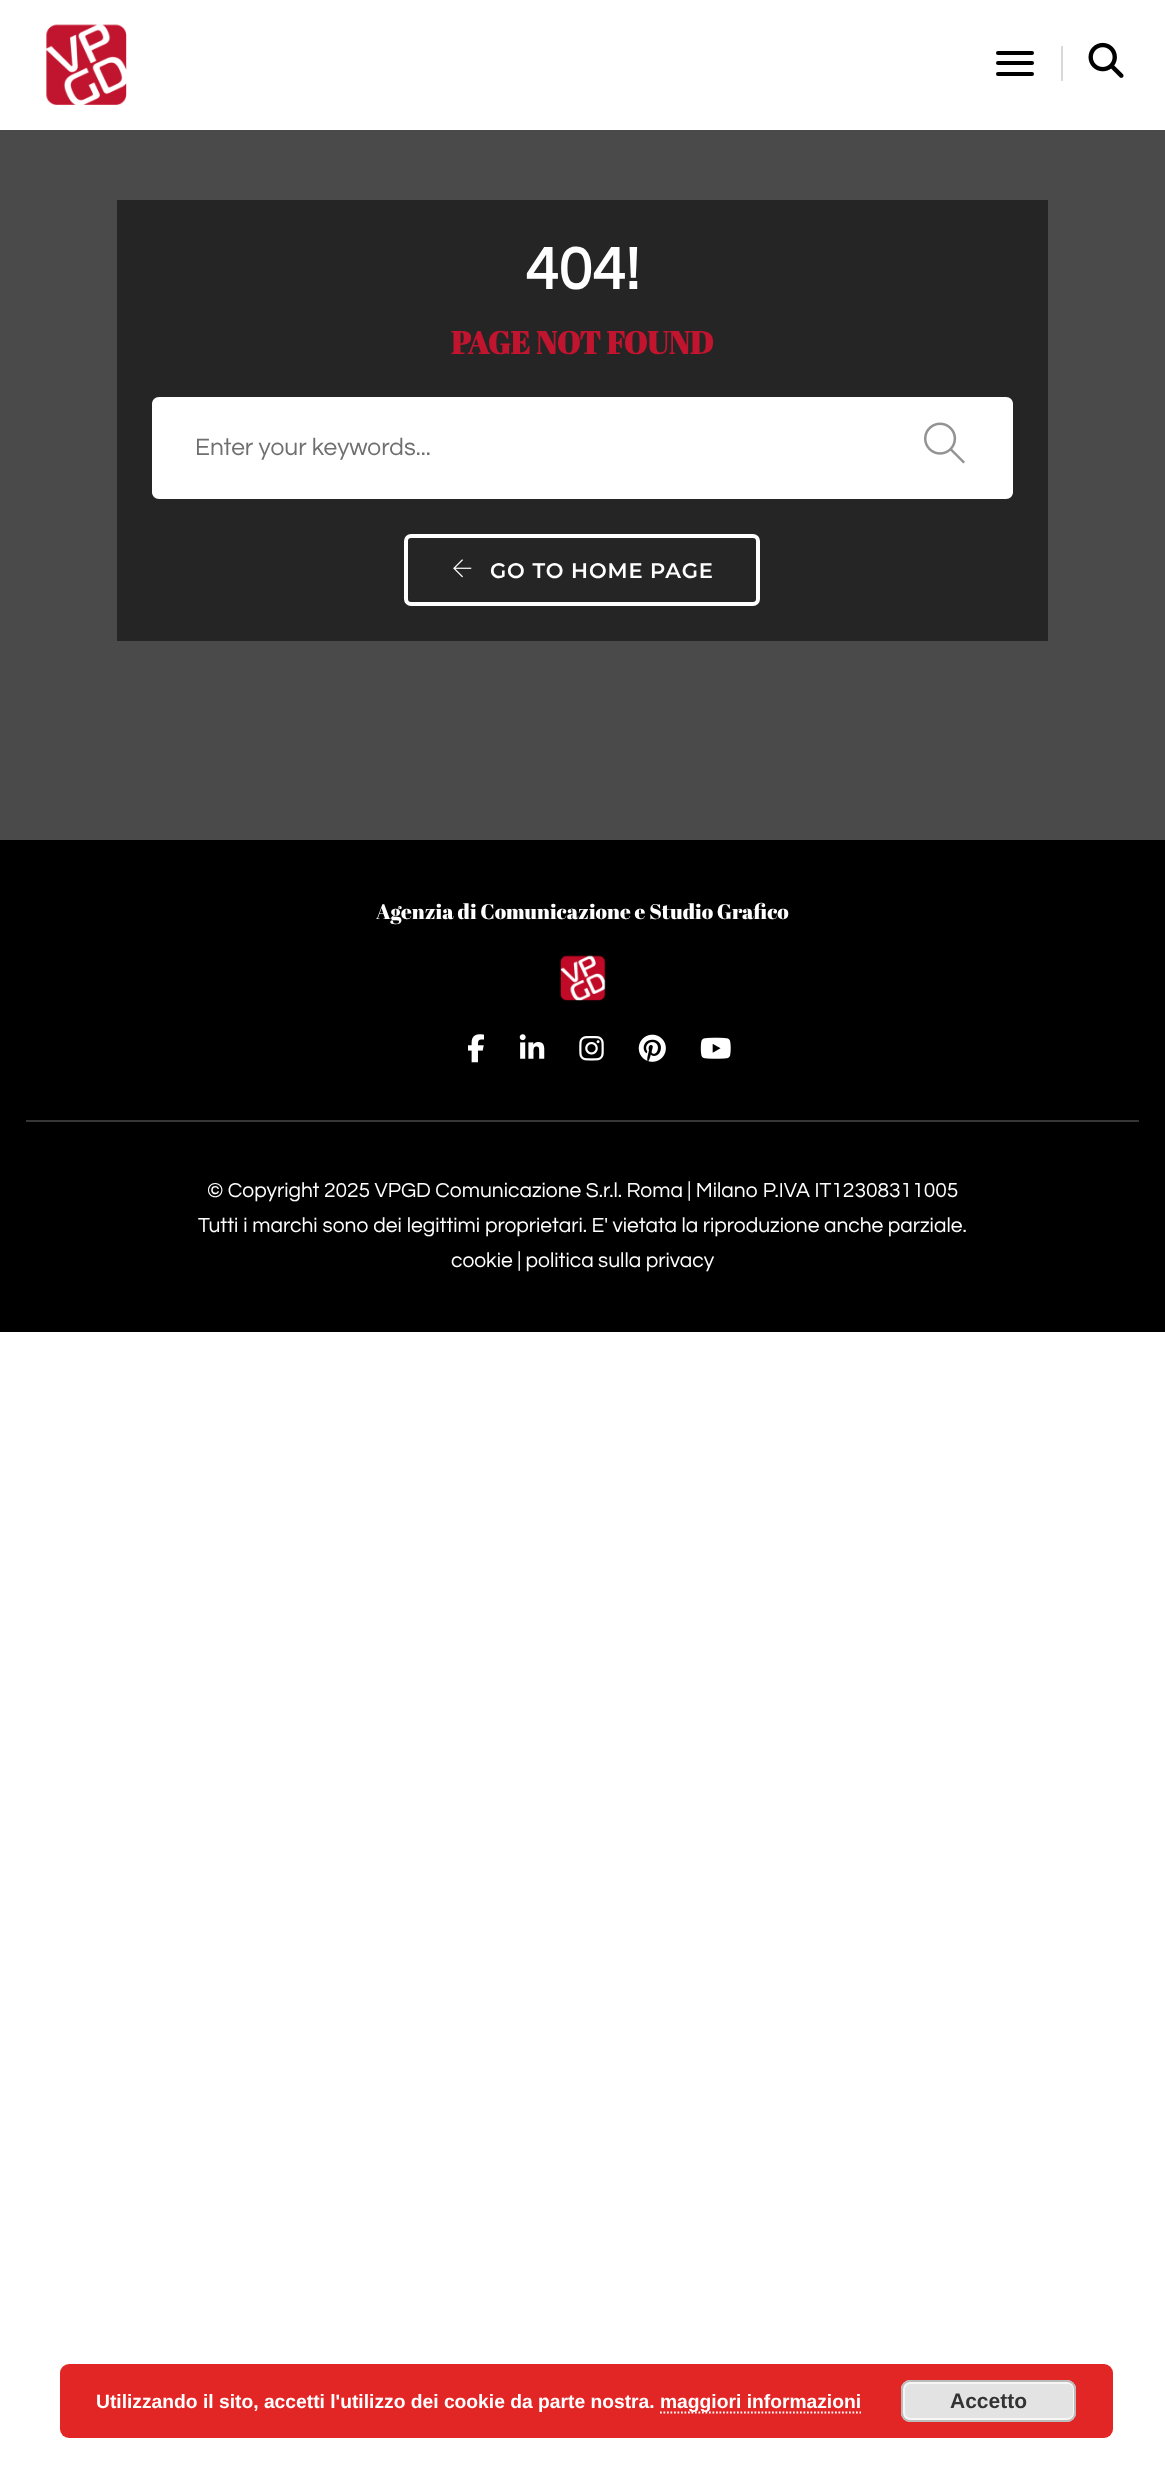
<svg xmlns="http://www.w3.org/2000/svg" width="1165" height="2490" viewBox="0 0 1165 2490">
  <style>
    .t1 { font: bold 61px Questrial; fill: #fff; }
    .t2 { font: bold 31.5px Abril Fatface; fill: #c1152f; }
    .t3 { font: 24.5px Questrial; fill: #6f6f6f; }
    .t4 { font: 600 21px Montserrat; letter-spacing: 0.9px; fill: #fff; }
    .t5 { font: 21px Abril Fatface; fill: #fff; }
    .t6 { font: 21px Questrial; fill: #fff; }
    .t7 { font: bold 19.25px Liberation Sans; fill: #fff; }
    .t8 { font: bold 21px Liberation Sans; fill: #333; }
  </style>
  <rect width="100%" height="100%" fill="#fff"/>
  <image x="46" y="24" width="81" height="81" href="images/1.png"/>
  <rect x="996" y="51" width="38" height="4" rx="2" fill="#000"/>
  <rect x="996" y="61" width="38" height="4" rx="2" fill="#000"/>
  <rect x="996" y="72" width="38" height="4" rx="2" fill="#000"/>
  <rect x="1061" y="46" width="2" height="35" fill="#d9d9d9"/>
  <image x="1088" y="42" width="36" height="36" href="images/2.png"/>
  <rect x="0" y="130" width="1165" height="710" fill="#4a4a4a"/>
  <rect x="117" y="200" width="931" height="441" fill="#252525"/>
  <text x="525" y="289" class="t1">404!</text>
  <text x="451" y="354" class="t2">PAGE NOT FOUND</text>
  <path d="M159 397H879V499H159C155 499 152 496 152 492V404C152 400 155 397 159 397Z" fill="#fff"/>
  <text x="195" y="455" class="t3">Enter your keywords...</text>
  <path d="M877 397H1006C1010 397 1013 400 1013 404V492C1013 496 1010 499 1006 499H877Z" fill="#fff"/>
  <image x="924" y="422" width="41" height="42" href="images/3.png"/>
  <rect x="406" y="536" width="352" height="68" rx="5" fill="none" stroke="#fff" stroke-width="4"/>
  <image x="453" y="559" width="19" height="19" href="images/4.png"/>
  <text x="490" y="578" class="t4">GO TO HOME PAGE</text>
  <rect x="0" y="840" width="1165" height="492" fill="#000"/>
  <text x="376" y="919" class="t5">Agenzia di Comunicazione e Studio Grafico</text>
  <image x="560" y="955" width="46" height="46" href="images/5.png"/>
  <image x="468" y="1034" width="16" height="29" href="images/6.png"/>
  <image x="519" y="1034" width="26" height="25" href="images/7.png"/>
  <image x="579" y="1036" width="25" height="25" href="images/8.png"/>
  <image x="638" y="1034" width="28" height="28" href="images/9.png"/>
  <image x="700" y="1037" width="31" height="22" href="images/10.png"/>
  <rect x="26" y="1120" width="1113" height="2" fill="#363636"/>
  <text x="207" y="1197" class="t6">© Copyright 2025 VPGD Comunicazione S.r.l. Roma | Milano P.IVA IT12308311005</text>
  <text x="198" y="1232" class="t6">Tutti i marchi sono dei legittimi proprietari. E' vietata la riproduzione anche parziale.</text>
  <text x="451" y="1267" class="t6">cookie | politica sulla privacy</text>
  <rect x="60" y="2364" width="1053" height="74" rx="9" fill="#e22626"/>
  <text x="96" y="2408" class="t7">Utilizzando il sito, accetti l'utilizzo dei cookie da parte nostra.</text>
  <path d="M660 2412.5H861" fill="none" stroke="#fff" stroke-width="1.8" stroke-dasharray="1.75 1.75"/>
  <text x="660" y="2408" class="t7">maggiori informazioni</text>
  <rect x="901" y="2380" width="175" height="42" rx="9" fill="#e3e3e3"/>
  <rect x="904" y="2383" width="170" height="36" rx="6" fill="none" stroke="#f6f6f6" stroke-width="2"/>
  <rect x="902" y="2381" width="173" height="40" rx="8" fill="none" stroke="#bbb" stroke-width="2"/>
  <text x="950" y="2408" class="t8">Accetto</text>
</svg>
